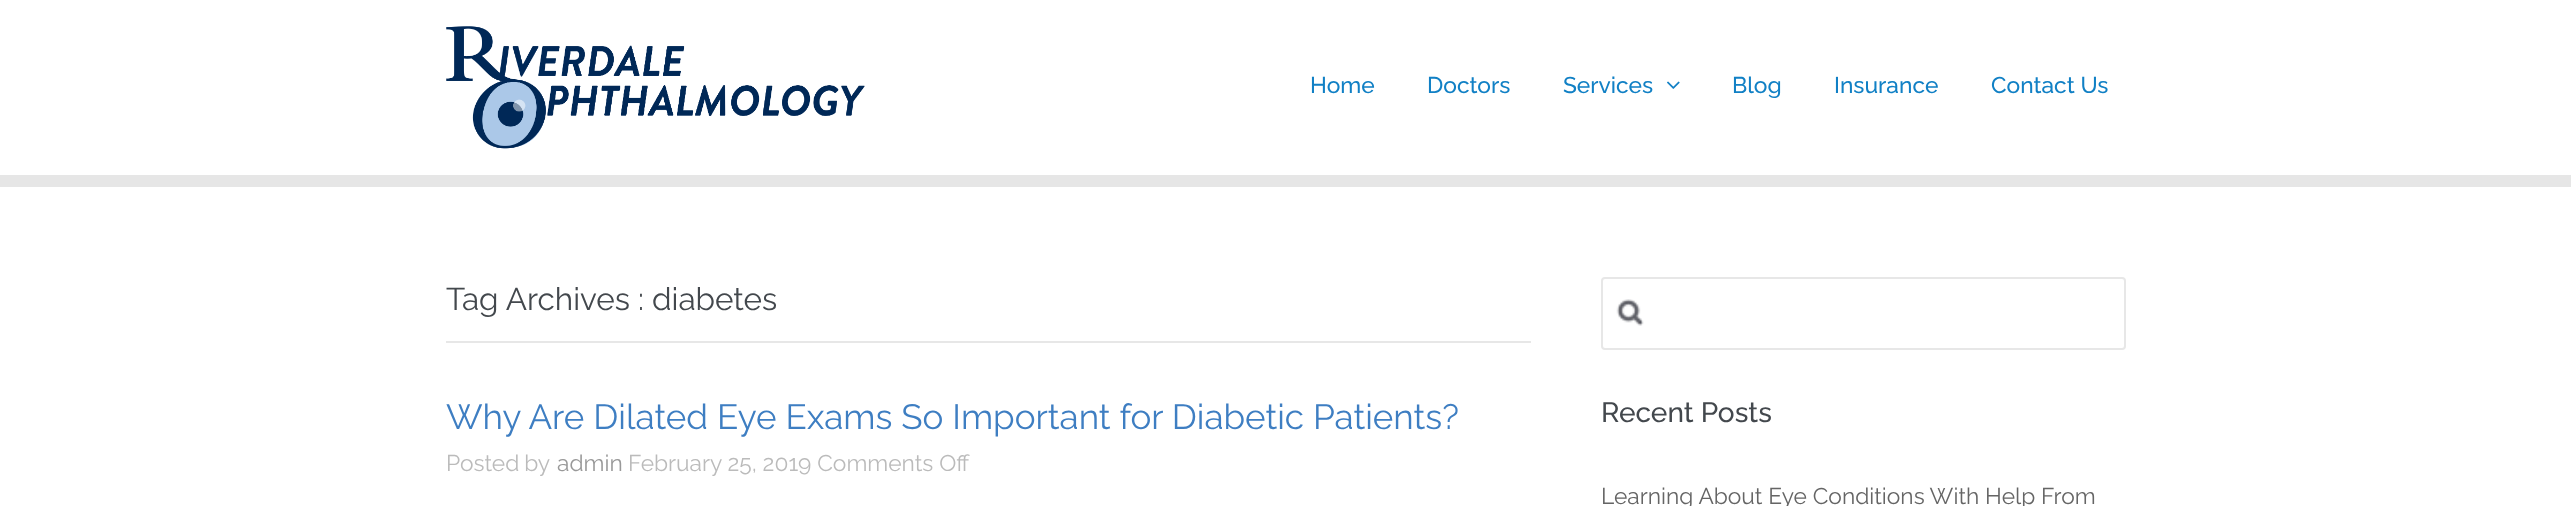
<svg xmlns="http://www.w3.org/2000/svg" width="2571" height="506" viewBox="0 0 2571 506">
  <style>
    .t1 { font: 500 22.75px Raleway; fill: #1180c5; }
    .t2 { font: 31.5px Raleway; fill: #43484d; }
    .t3 { font: 35px Raleway; fill: #3e7ec2; }
    .t4 { font: 22.75px Raleway; fill: #bbb; }
    .t5 { font: 22.75px Raleway; fill: #999; }
    .t6 { font: 500 28px Raleway; fill: #43484d; }
    .t7 { font: 22.75px Raleway; fill: #656565; }
  </style>
  <rect width="100%" height="100%" fill="#fff"/>
  <rect x="0" y="175" width="2571" height="12" fill="#e6e6e6"/>
  <image x="446" y="26" width="419" height="123" href="images/1.png"/>
  <text x="1310" y="93" class="t1">Home</text>
  <text x="1427" y="93" class="t1">Doctors</text>
  <text x="1563" y="93" class="t1">Services</text>
  <image x="1667" y="81" width="13" height="8" href="images/2.png"/>
  <text x="1732" y="93" class="t1">Blog</text>
  <text x="1834" y="93" class="t1">Insurance</text>
  <text x="1991" y="93" class="t1">Contact Us</text>
  <rect x="446" y="341" width="1085" height="2" fill="#e7e7e7"/>
  <text x="446" y="310" class="t2">Tag Archives : diabetes</text>
  <text x="446" y="429" class="t3">Why Are Dilated Eye Exams So Important for Diabetic Patients?</text>
  <text x="446" y="471" word-spacing="-1" class="t4">Posted by</text>
  <text x="557" y="471" class="t5">admin</text>
  <text x="628" y="471" class="t4">February 25, 2019 Comments Off</text>
  <image x="1616" y="299" width="28" height="27" href="images/3.png"/>
  <rect x="1602" y="278" width="523" height="71" rx="3" fill="none" stroke="#e7e7e7" stroke-width="2"/>
  <text x="1601" y="422" class="t6">Recent Posts</text>
  <text x="1601" y="504" class="t7">Learning About Eye Conditions With Help From</text>
</svg>
